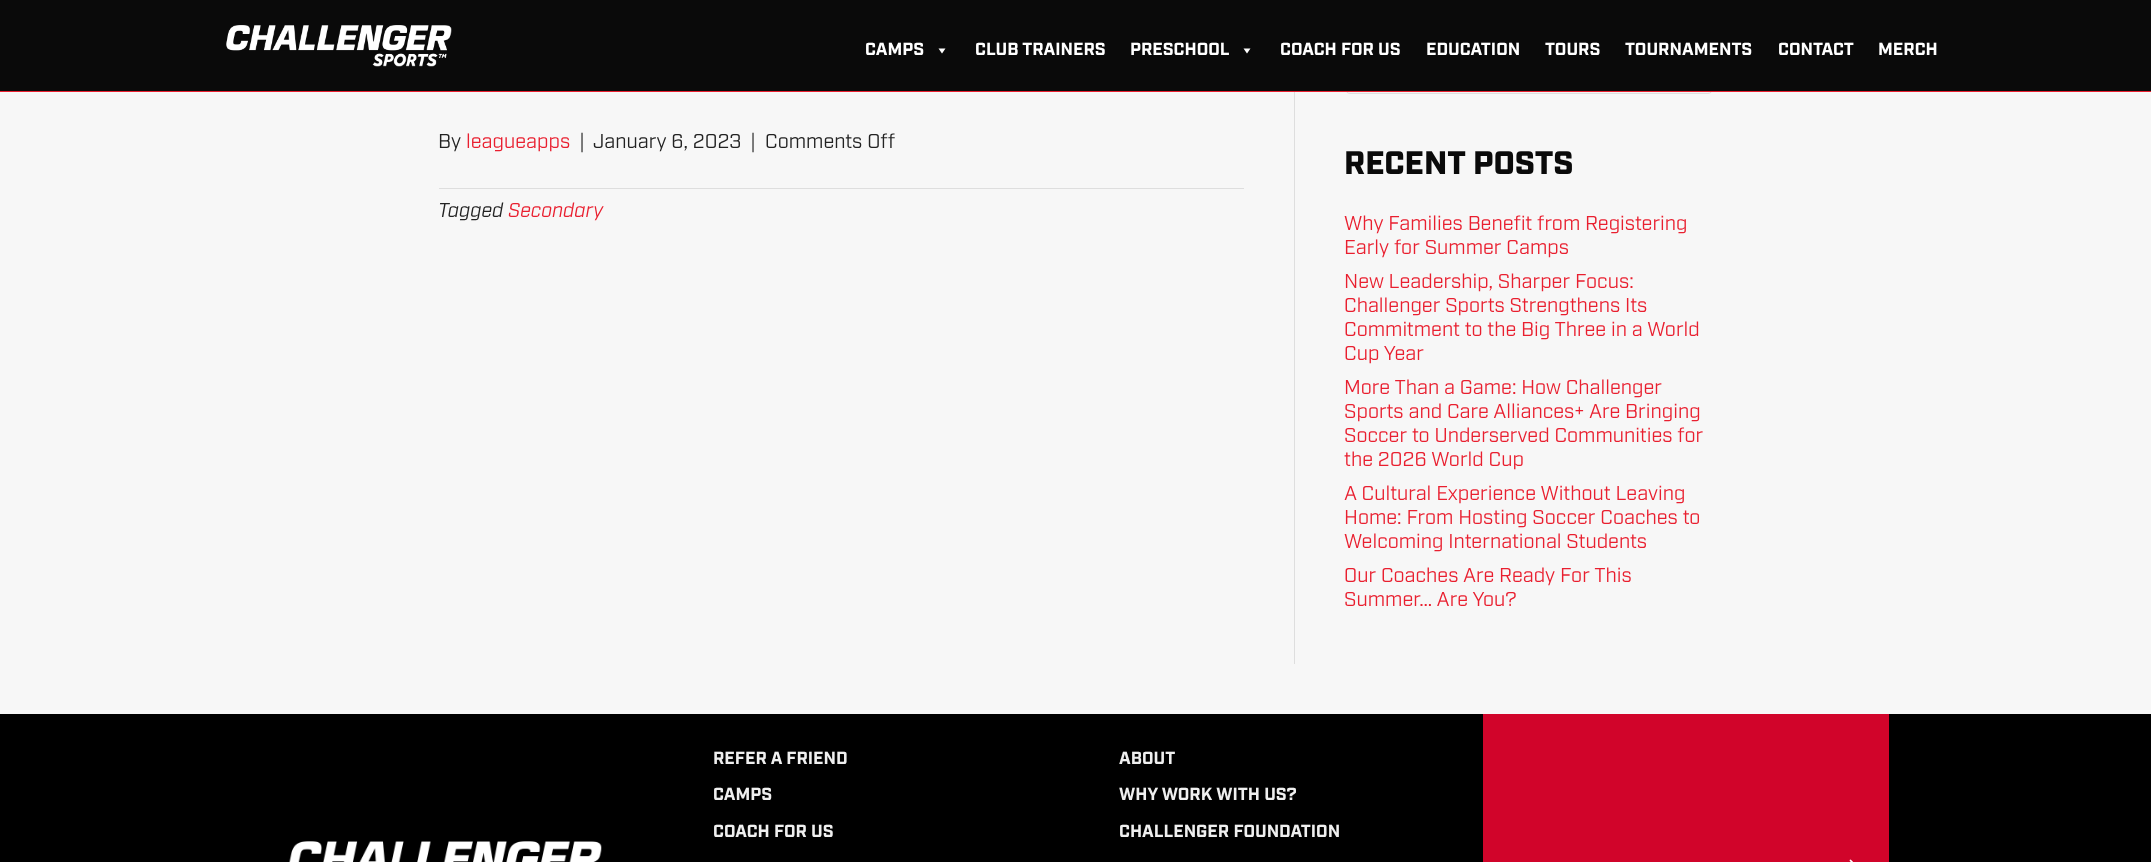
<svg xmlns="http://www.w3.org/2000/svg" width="2151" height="862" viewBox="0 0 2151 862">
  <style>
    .t1 { font: bold 17.5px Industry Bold; fill: #fff; }
    .t2 { font: 20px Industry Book; fill: #222; }
    .t3 { font: 20px Industry Book; fill: #e91f2f; }
    .t4 { font: italic 20px Industry Book; fill: #222; }
    .t5 { font: italic 20px Industry Book; fill: #e91f2f; }
    .t6 { font: 900 32.5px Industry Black; fill: #0a0a0a; }
    .t7 { font: bold 17.5px Industry Bold; fill: #efefef; }
  </style>
  <rect width="100%" height="100%" fill="#f7f7f7"/>
  <rect x="1346" y="51" width="365" height="42" rx="4" fill="#f4f4f4"/>
  <rect x="1345.5" y="50.5" width="367" height="43" rx="4.5" fill="none" stroke="#dedede"/>
  <rect x="0" y="0" width="2151" height="91" fill="#0a0a0a"/>
  <rect x="0" y="91" width="2151" height="1" fill="#e91f2f"/>
  <image x="226" y="25" width="226" height="42" href="images/1.png"/>
  <text x="865" y="55" class="t1">CAMPS</text>
  <path d="M945.5 48.5L942 53.5L938.5 48.5Z" fill="#fff"/>
  <text x="975" y="55" class="t1">CLUB TRAINERS</text>
  <text x="1130" y="55" class="t1">PRESCHOOL</text>
  <path d="M1250.5 48.5L1247 53.5L1243.5 48.5Z" fill="#fff"/>
  <text x="1280" y="55" class="t1">COACH FOR US</text>
  <text x="1426" y="55" class="t1">EDUCATION</text>
  <text x="1545" y="55" class="t1">TOURS</text>
  <text x="1625" y="55" class="t1">TOURNAMENTS</text>
  <text x="1778" y="55" class="t1">CONTACT</text>
  <text x="1878" y="55" class="t1">MERCH</text>
  <rect x="1294" y="92" width="1" height="572" fill="#dedede"/>
  <text x="438" y="148" class="t2">By</text>
  <text x="466" y="148" class="t3">leagueapps</text>
  <text x="579" y="148" class="t2">|</text>
  <text x="593" y="148" class="t2">January 6, 2023</text>
  <text x="750" y="148" class="t2">|</text>
  <text x="765" y="148" class="t2">Comments Off</text>
  <rect x="439" y="188" width="805" height="1" fill="#dedede"/>
  <text x="438" y="217" class="t4">Tagged</text>
  <text x="508" y="217" class="t5">Secondary</text>
  <text x="1344" y="174" class="t6">RECENT POSTS</text>
  <text x="1344" y="230" class="t3">Why Families Benefit from Registering</text>
  <text x="1344" y="254" class="t3">Early for Summer Camps</text>
  <text x="1344" y="288" class="t3">New Leadership, Sharper Focus:</text>
  <text x="1344" y="312" class="t3">Challenger Sports Strengthens Its</text>
  <text x="1344" y="336" class="t3">Commitment to the Big Three in a World</text>
  <text x="1344" y="360" class="t3">Cup Year</text>
  <text x="1344" y="394" class="t3">More Than a Game: How Challenger</text>
  <text x="1344" y="418" class="t3">Sports and Care Alliances+ Are Bringing</text>
  <text x="1344" y="442" class="t3">Soccer to Underserved Communities for</text>
  <text x="1344" y="466" class="t3">the 2026 World Cup</text>
  <text x="1344" y="500" class="t3">A Cultural Experience Without Leaving</text>
  <text x="1344" y="524" class="t3">Home: From Hosting Soccer Coaches to</text>
  <text x="1344" y="548" class="t3">Welcoming International Students</text>
  <text x="1344" y="582" class="t3">Our Coaches Are Ready For This</text>
  <text x="1344" y="606" class="t3">Summer… Are You?</text>
  <rect x="0" y="714" width="2151" height="148" fill="#000"/>
  <text x="713" y="764" class="t7">REFER A FRIEND</text>
  <text x="713" y="800" class="t7">CAMPS</text>
  <text x="713" y="837" class="t7">COACH FOR US</text>
  <text x="1119" y="764" class="t7">ABOUT</text>
  <text x="1119" y="800" class="t7">WHY WORK WITH US?</text>
  <text x="1119" y="837" class="t7">CHALLENGER FOUNDATION</text>
  <rect x="1483" y="714" width="406" height="148" fill="#d1042a"/>
  <image x="1849" y="859" width="4" height="3" href="images/2.png"/>
  <image x="289" y="841" width="313" height="21" href="images/3.png"/>
</svg>
